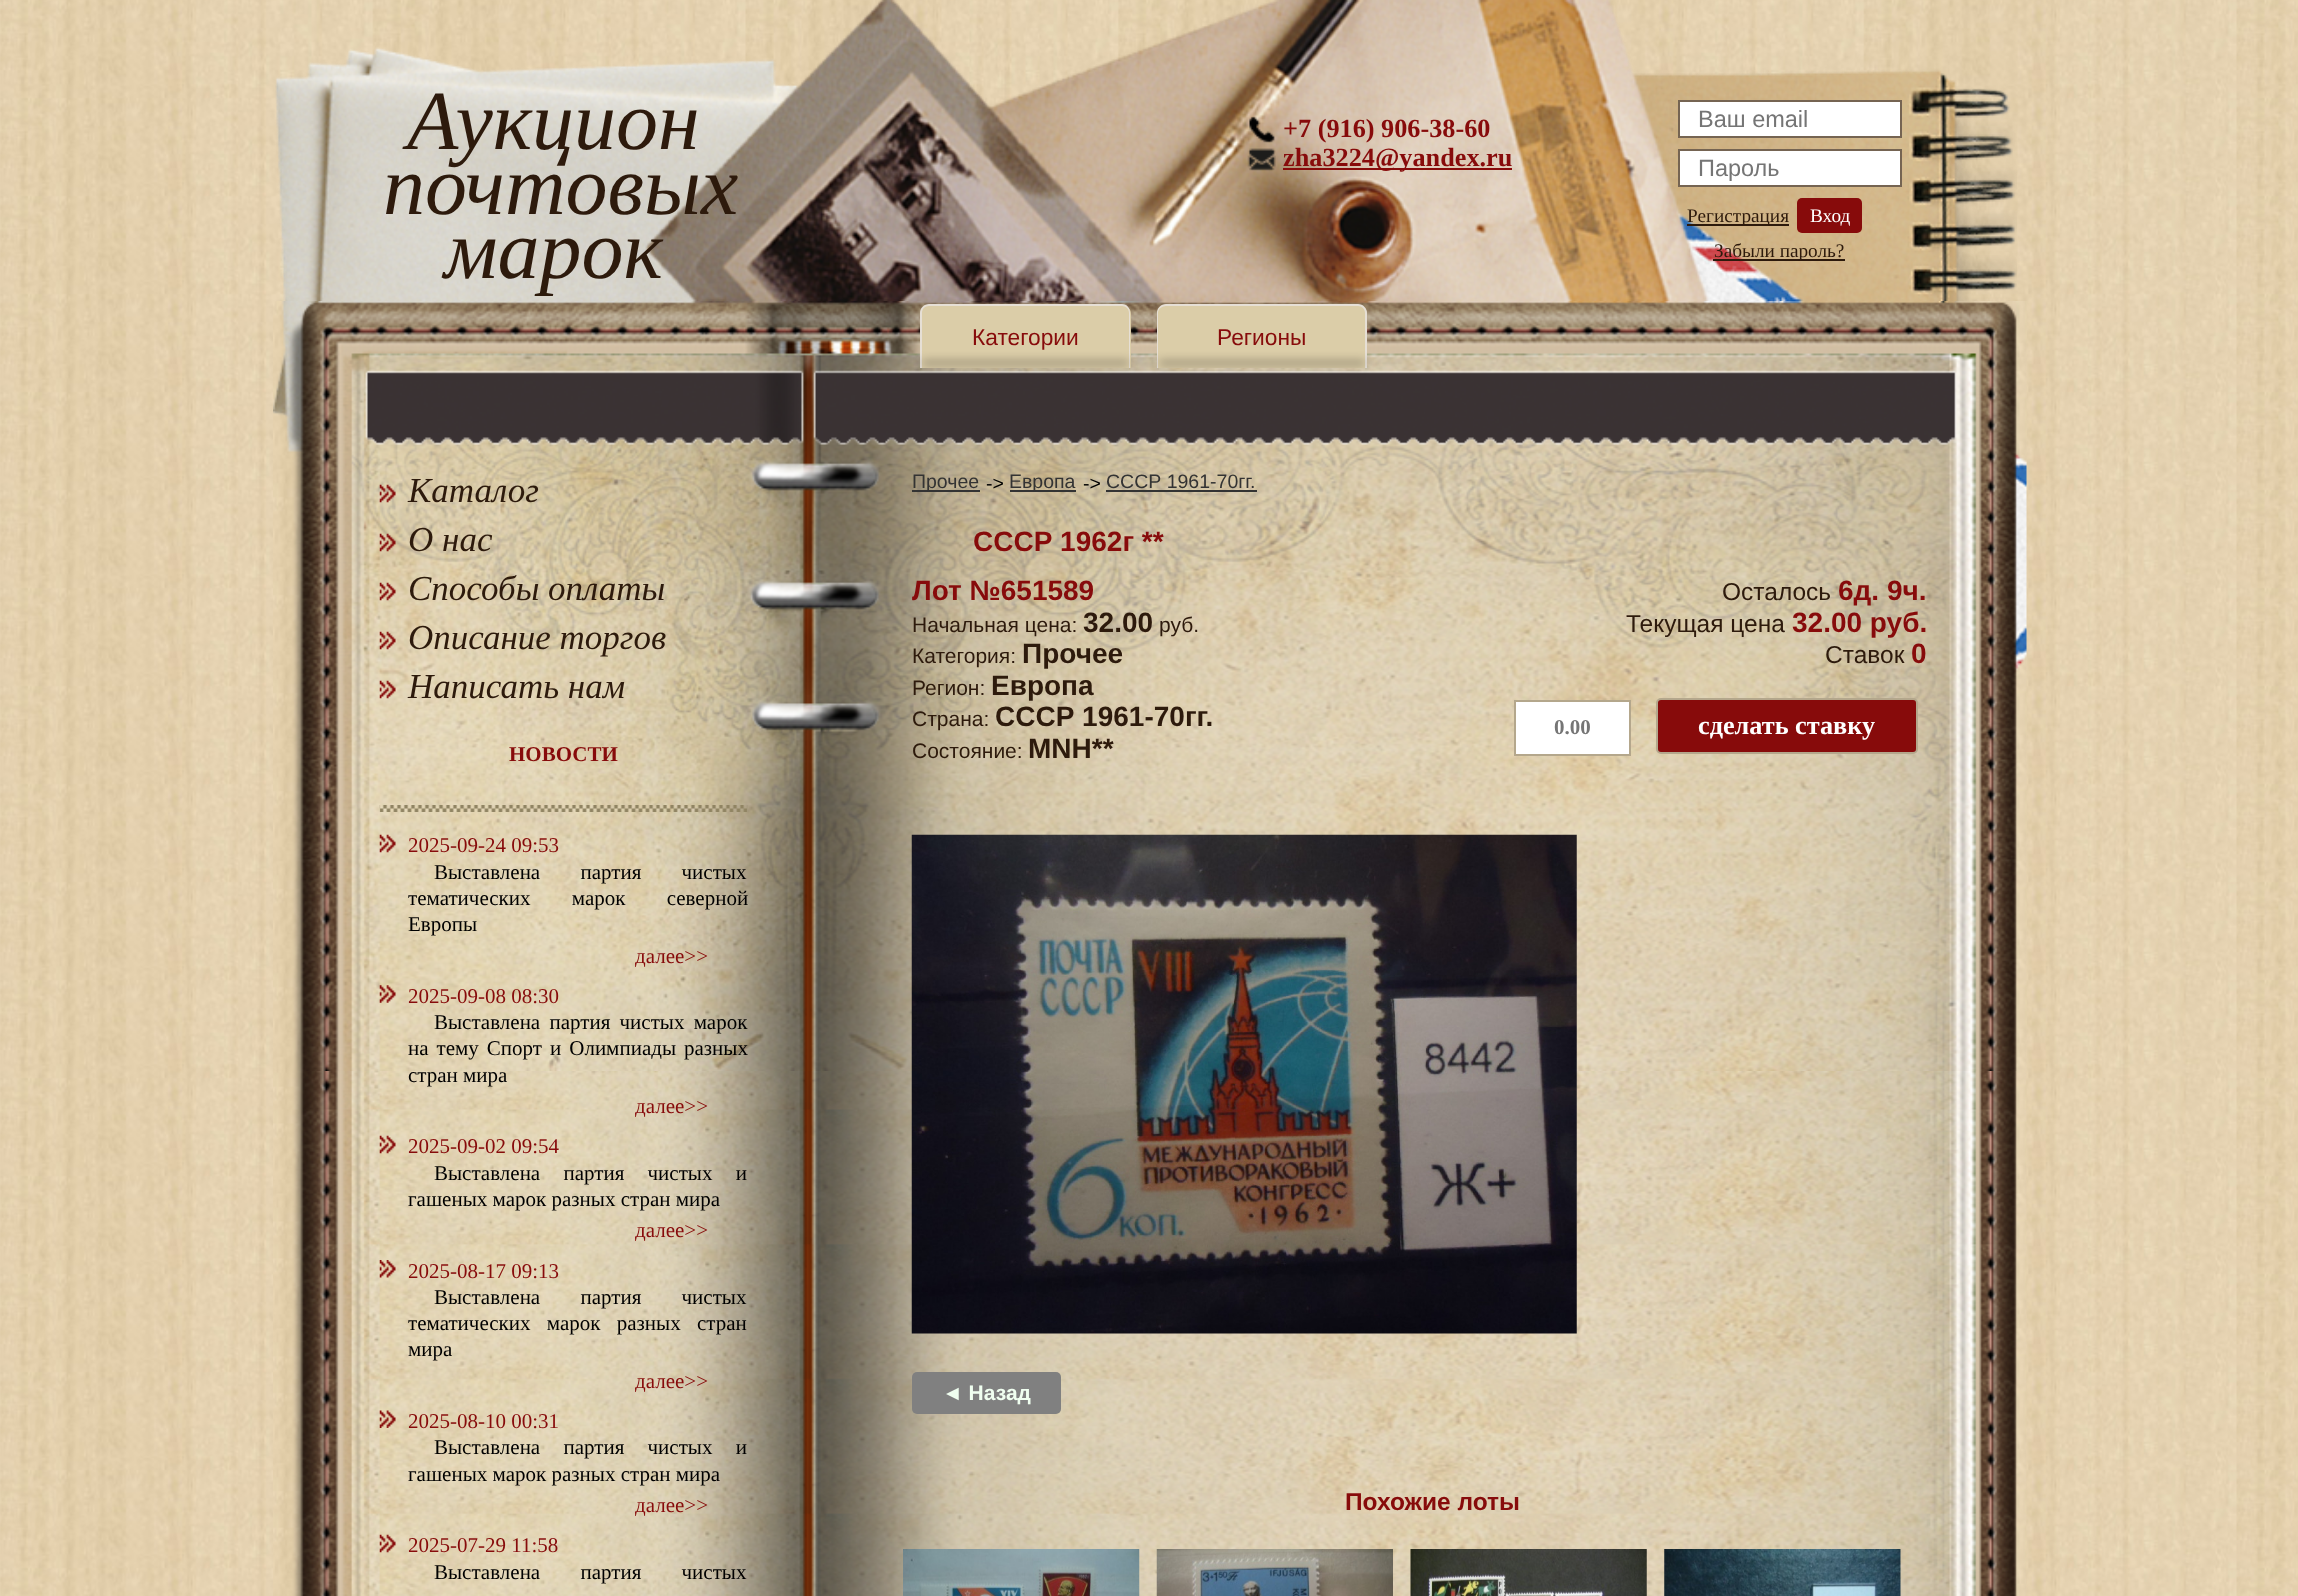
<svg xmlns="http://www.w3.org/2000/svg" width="2298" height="1596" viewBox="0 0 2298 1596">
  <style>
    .t1 { font: italic 84px Liberation Serif; fill: #2d1a0c; }
    .t2 { font: bold 26.25px Liberation Serif; fill: #870b0b; }
    .t3 { font: 23.5px Liberation Sans; fill: #757575; }
    .t4 { font: 19.25px Liberation Serif; fill: #2d1a0c; }
    .t5 { font: 19.25px Liberation Serif; fill: #fff; }
    .t6 { font: 22.75px Liberation Sans; fill: #870b0b; }
    .t7 { font: italic 35px Liberation Serif; fill: #2d1a0c; }
    .t8 { font: bold 21px Liberation Serif; fill: #870b0b; }
    .t9 { font: 21px Liberation Serif; fill: #870b0b; }
    .t10 { font: 21px Liberation Serif; fill: #000; }
    .t11 { font: 19.5px Liberation Sans; fill: #333; }
    .t12 { font: 19.5px Liberation Sans; fill: #000; }
    .t13 { font: bold 28px Liberation Sans; fill: #870b0b; }
    .t14 { font: 21px Liberation Sans; fill: #2d1a0c; }
    .t15 { font: bold 28px Liberation Sans; fill: #2d1a0c; }
    .t16 { font: 24.5px Liberation Sans; fill: #2d1a0c; }
    .t17 { font: bold 21px Liberation Serif; fill: #757575; }
    .t18 { font: bold 26.25px Liberation Serif; fill: #fff; }
    .t19 { font: bold 21px Liberation Sans; fill: #f0fff0; }
    .t20 { font: bold 24.5px Liberation Sans; fill: #870b0b; }
  </style>
  <defs>
    <clipPath id="clip1"><path d="M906 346H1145V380H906ZM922 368H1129V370H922Z" clip-rule="evenodd"/></clipPath>
    <clipPath id="clip2"><path d="M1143 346H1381V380H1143ZM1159 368H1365V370H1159Z" clip-rule="evenodd"/></clipPath>
  </defs>
  <rect width="100%" height="100%" fill="#fff"/>
  <image x="0" y="0" width="2298" height="1596" href="images/1.png"/>
  <image x="275" y="0" width="1742" height="301" href="images/2.png"/>
  <text x="407" y="149" class="t1">Аукцион</text>
  <text x="383" y="214" class="t1">почтовых</text>
  <text x="444" y="278" class="t1">марок</text>
  <image x="1249" y="116" width="26" height="27" href="images/3.png"/>
  <text x="1283" y="137" class="t2">+7 (916) 906-38-60</text>
  <image x="1247" y="148" width="29" height="23" href="images/4.png"/>
  <rect x="1283" y="168" width="229" height="2" fill="#870b0b"/>
  <text x="1283" y="166" class="t2">zha3224@yandex.ru</text>
  <rect x="1679" y="101" width="222" height="36" fill="#fff" stroke="#756452" stroke-width="2"/>
  <text x="1698" y="127" class="t3">Ваш email</text>
  <rect x="1679" y="150" width="222" height="36" fill="#fff" stroke="#756452" stroke-width="2"/>
  <text x="1698" y="176" class="t3">Пароль</text>
  <rect x="1687" y="224" width="102" height="2" fill="#2d1a0c"/>
  <text x="1687" y="222" class="t4">Регистрация</text>
  <rect x="1797" y="198" width="65" height="35" rx="5" fill="#870b0b"/>
  <text x="1810" y="222" class="t5">Вход</text>
  <rect x="1713" y="259" width="132" height="2" fill="#2d1a0c"/>
  <text x="1714" y="257" class="t4">Забыли пароль?</text>
  <image x="273" y="301" width="1754" height="1295" href="images/5.png"/>
  <path d="M930 305H1122C1127 305 1131 309 1131 314V368H921V314C921 309 925 305 930 305Z" fill="#dbcda8"/>
  <path d="M929 304H1122C1127 304 1130 308 1130 313V368H920V313C920 308 924 304 929 304ZM929 306H1122C1126 306 1129 309 1129 313V368H922V313C922 309 925 306 929 306Z" fill="#e6dfd5" fill-rule="evenodd"/>
  <text x="972" y="345" class="t6">Категории</text>
  <g clip-path="url(#clip1)">
    <rect x="922" y="362" width="207" height="2" fill="#000000d9" filter="blur(5px)"/>
  </g>
  <path d="M1166 305H1358C1363 305 1367 309 1367 314V368H1157V314C1157 309 1161 305 1166 305Z" fill="#dbcda8"/>
  <path d="M1166 304H1358C1363 304 1367 308 1367 313V368H1157V313C1157 308 1161 304 1166 304ZM1166 306H1358C1362 306 1365 309 1365 313V368H1158V313C1158 309 1162 306 1166 306Z" fill="#e6dfd5" fill-rule="evenodd"/>
  <text x="1217" y="345" class="t6">Регионы</text>
  <g clip-path="url(#clip2)">
    <rect x="1159" y="362" width="206" height="2" fill="#000000d9" filter="blur(5px)"/>
  </g>
  <image x="379" y="484" width="17" height="19" href="images/6.png"/>
  <text x="408" y="502" class="t7">Каталог</text>
  <image x="379" y="533" width="17" height="19" href="images/7.png"/>
  <text x="408" y="551" class="t7">О нас</text>
  <image x="379" y="582" width="17" height="19" href="images/8.png"/>
  <text x="408" y="600" class="t7">Способы оплаты</text>
  <image x="379" y="631" width="17" height="19" href="images/9.png"/>
  <text x="408" y="649" class="t7">Описание торгов</text>
  <image x="379" y="680" width="17" height="19" href="images/10.png"/>
  <text x="408" y="698" class="t7">Написать нам</text>
  <text x="509" y="761" class="t8">НОВОСТИ</text>
  <image x="379" y="805" width="369" height="7" href="images/11.png"/>
  <image x="379" y="834" width="17" height="19" href="images/12.png"/>
  <text x="408" y="852" class="t9">2025-09-24 09:53</text>
  <text x="434" y="879" word-spacing="35" class="t10">Выставлена партия чистых</text>
  <text x="408" y="905" word-spacing="36" class="t10">тематических марок северной</text>
  <text x="408" y="931" class="t10">Европы</text>
  <text x="635" y="963" class="t9">далее&gt;&gt;</text>
  <image x="379" y="985" width="17" height="18" href="images/13.png"/>
  <text x="408" y="1003" class="t9">2025-09-08 08:30</text>
  <text x="434" y="1029" word-spacing="4" class="t10">Выставлена партия чистых марок</text>
  <text x="408" y="1055" word-spacing="2.75" class="t10">на тему Спорт и Олимпиады разных</text>
  <text x="408" y="1082" class="t10">стран мира</text>
  <text x="635" y="1113" class="t9">далее&gt;&gt;</text>
  <image x="379" y="1135" width="17" height="19" href="images/14.png"/>
  <text x="408" y="1153" class="t9">2025-09-02 09:54</text>
  <text x="434" y="1180" word-spacing="18" class="t10">Выставлена партия чистых и</text>
  <text x="408" y="1206" class="t10">гашеных марок разных стран мира</text>
  <text x="635" y="1237" class="t9">далее&gt;&gt;</text>
  <image x="379" y="1260" width="17" height="18" href="images/15.png"/>
  <text x="408" y="1278" class="t9">2025-08-17 09:13</text>
  <text x="434" y="1304" word-spacing="35" class="t10">Выставлена партия чистых</text>
  <text x="408" y="1330" word-spacing="11" class="t10">тематических марок разных стран</text>
  <text x="408" y="1356" class="t10">мира</text>
  <text x="635" y="1388" class="t9">далее&gt;&gt;</text>
  <image x="379" y="1410" width="17" height="18" href="images/16.png"/>
  <text x="408" y="1428" class="t9">2025-08-10 00:31</text>
  <text x="434" y="1454" word-spacing="18" class="t10">Выставлена партия чистых и</text>
  <text x="408" y="1481" class="t10">гашеных марок разных стран мира</text>
  <text x="635" y="1512" class="t9">далее&gt;&gt;</text>
  <image x="379" y="1534" width="17" height="19" href="images/17.png"/>
  <text x="408" y="1552" class="t9">2025-07-29 11:58</text>
  <text x="434" y="1579" word-spacing="35" class="t10">Выставлена партия чистых</text>
  <rect x="912" y="490" width="68" height="2" fill="#333"/>
  <text x="912" y="488" class="t11">Прочее</text>
  <text x="986" y="490" class="t12">-&gt;</text>
  <rect x="1010" y="490" width="66" height="2" fill="#333"/>
  <text x="1009" y="488" class="t11">Европа</text>
  <text x="1083" y="490" class="t12">-&gt;</text>
  <text x="1106" y="488" class="t11">СССР 1961-70гг.</text>
  <rect x="1106" y="490" width="151" height="2" fill="#333"/>
  <text x="973" y="551" class="t13">СССР 1962г **</text>
  <text x="912" y="600" class="t13">Лот №651589</text>
  <text x="912" y="632" class="t14">Начальная цена:</text>
  <text x="1083" y="632" class="t15">32.00</text>
  <text x="1159" y="632" class="t14">руб.</text>
  <text x="912" y="663" class="t14">Категория:</text>
  <text x="1022" y="663" class="t15">Прочее</text>
  <text x="912" y="695" class="t14">Регион:</text>
  <text x="991" y="695" class="t15">Европа</text>
  <text x="912" y="726" class="t14">Страна:</text>
  <text x="995" y="726" class="t15">СССР 1961-70гг.</text>
  <text x="912" y="758" class="t14">Состояние:</text>
  <text x="1028" y="758" class="t15">MNH**</text>
  <text x="1722" y="600" class="t16">Осталось</text>
  <text x="1838" y="600" class="t13">6д. 9ч.</text>
  <text x="1626" y="632" class="t16">Текущая цена</text>
  <text x="1792" y="632" class="t13">32.00 руб.</text>
  <text x="1825" y="663" class="t16">Ставок</text>
  <text x="1911" y="663" class="t13">0</text>
  <rect x="1515" y="701" width="115" height="54" fill="#fff" stroke="#b4a78c" stroke-width="2"/>
  <text x="1554" y="734" class="t17">0.00</text>
  <rect x="1657" y="699" width="260" height="54" rx="4" fill="#870b0b" stroke="#b4a78c" stroke-width="2"/>
  <text x="1698" y="734" class="t18">сделать ставку</text>
  <image x="911" y="834" width="666" height="500" href="images/18.png"/>
  <rect x="912" y="1372" width="149" height="42" rx="5" fill="#808080"/>
  <text x="942" y="1400" class="t19">◄ Назад</text>
  <text x="1345" y="1510" class="t20">Похожие лоты</text>
  <image x="903" y="1549" width="237" height="47" href="images/19.png"/>
  <image x="1156" y="1549" width="237" height="47" href="images/20.png"/>
  <image x="1410" y="1549" width="237" height="47" href="images/21.png"/>
  <image x="1664" y="1549" width="237" height="47" href="images/22.png"/>
</svg>
